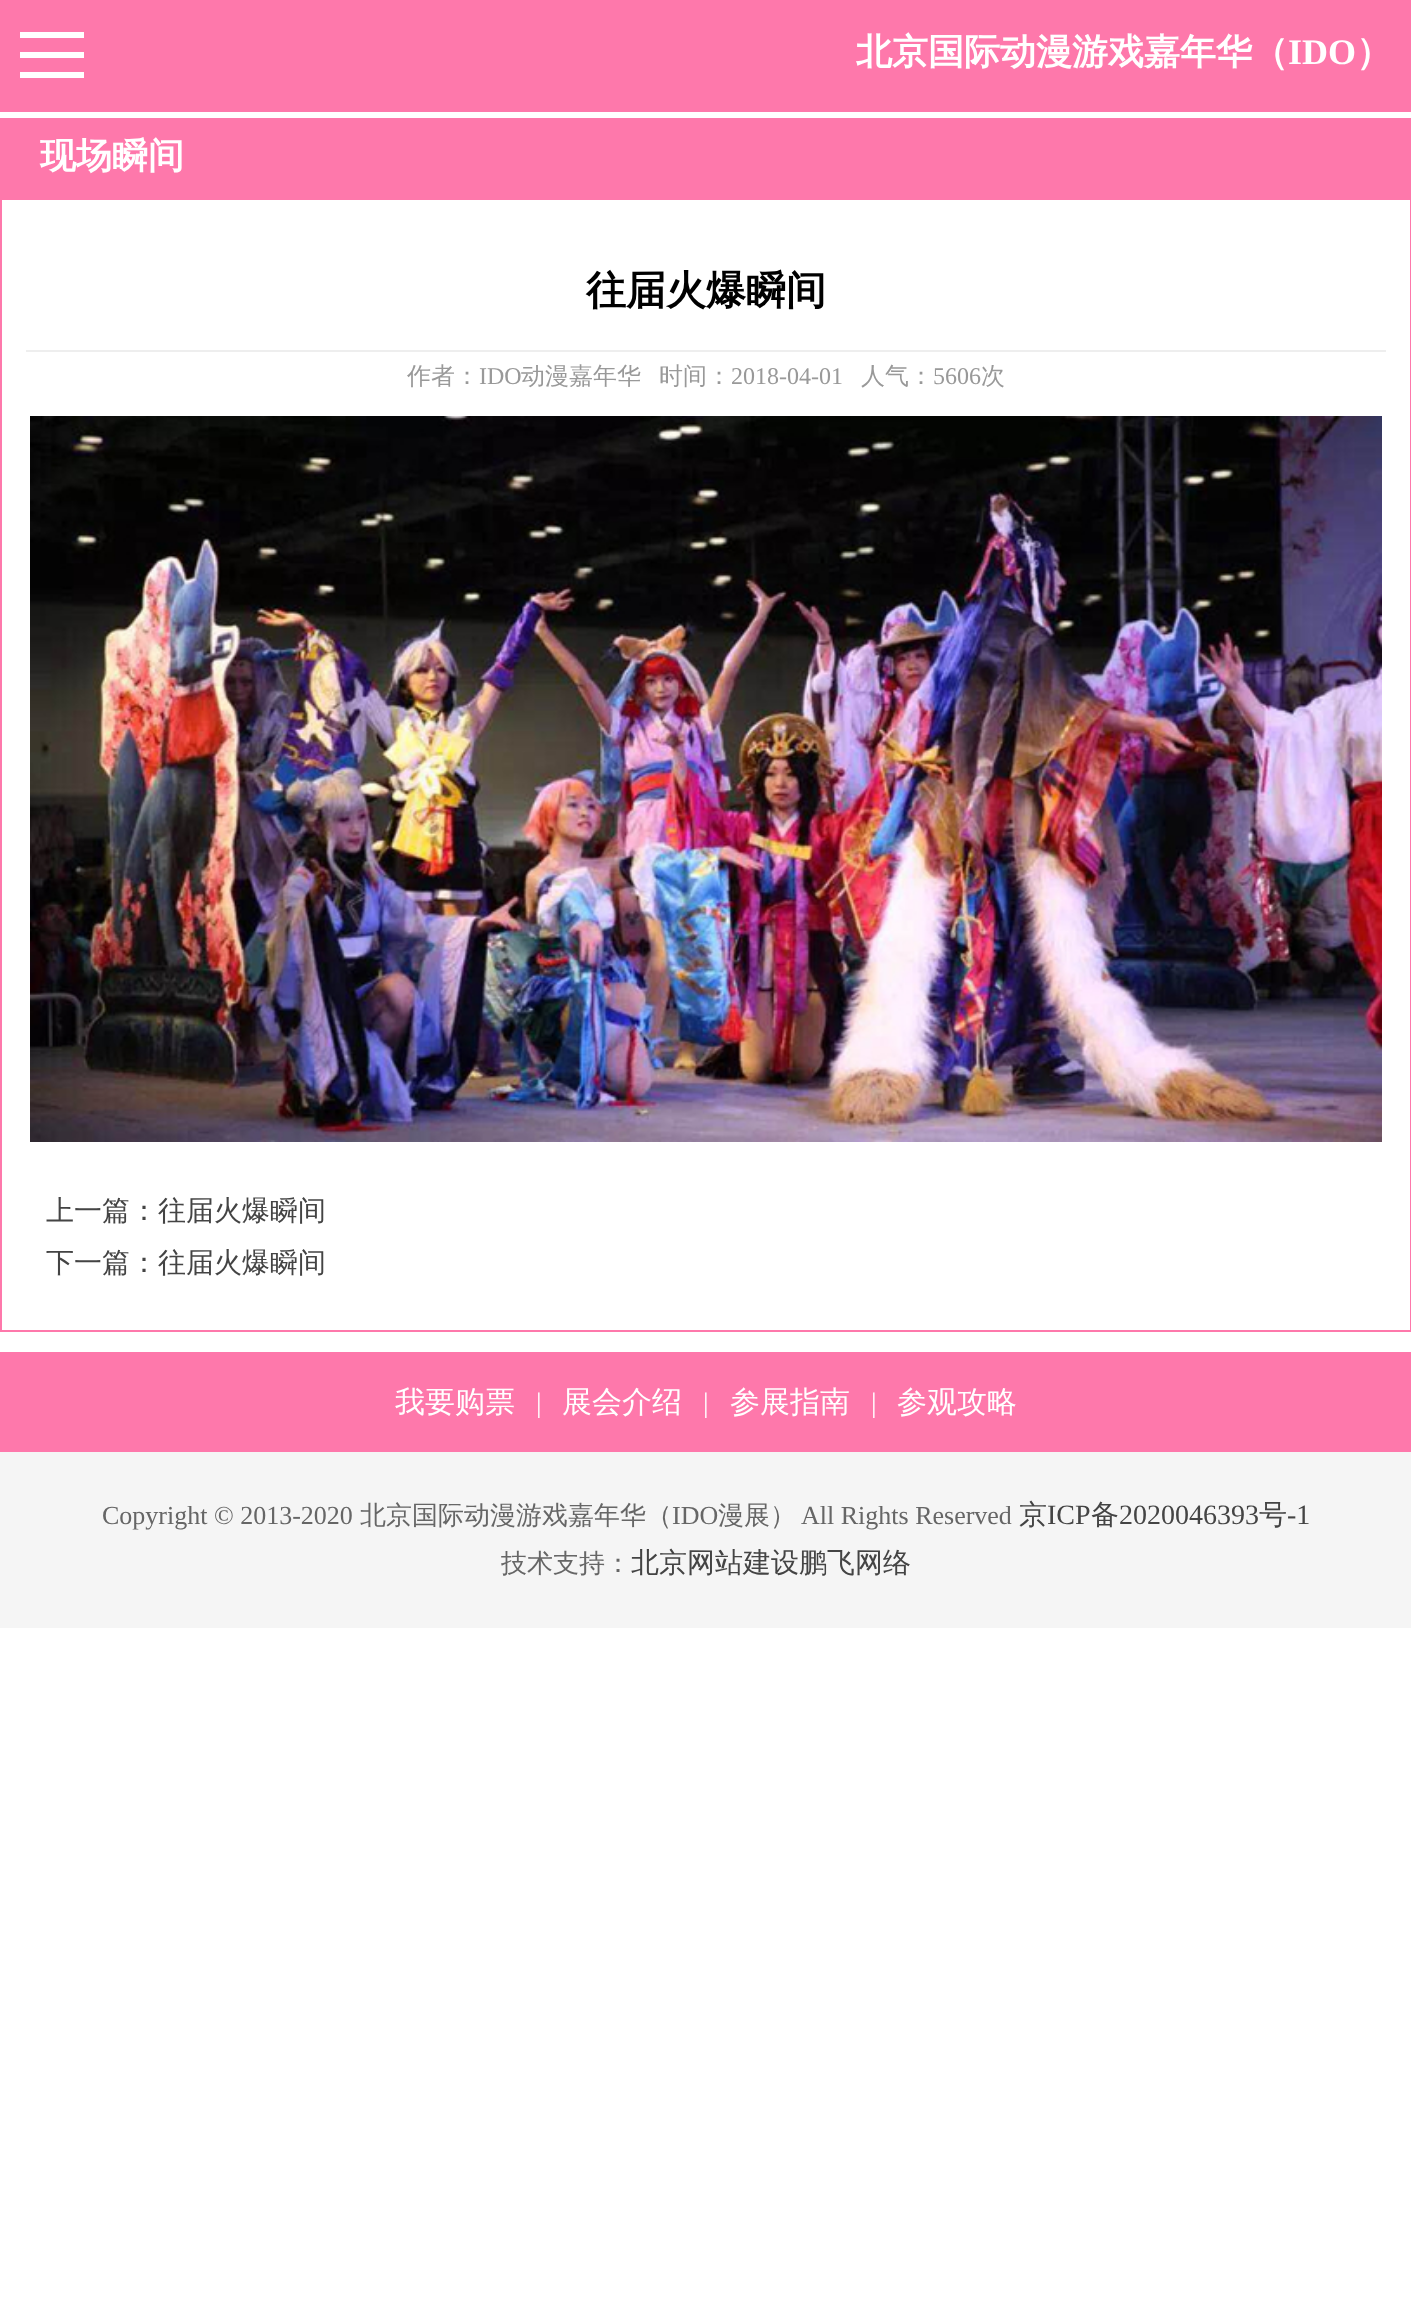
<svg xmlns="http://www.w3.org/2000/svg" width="1411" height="2321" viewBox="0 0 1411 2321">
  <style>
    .t1 { font: bold 36px WenQuanYi Zen Hei; fill: #fff; }
    .t2 { font: bold 36px Liberation Serif; fill: #fff; }
    .t3 { font: bold 40px WenQuanYi Zen Hei; fill: #000; }
    .t4 { font: 500 24px WenQuanYi Zen Hei; fill: #999; }
    .t5 { font: 24px Liberation Serif; fill: #999; }
    .t6 { font: 500 28px WenQuanYi Zen Hei; fill: #444; }
    .t7 { font: 500 30px WenQuanYi Zen Hei; fill: #fff; }
    .t8 { font: 28px Liberation Serif; fill: #fff; }
    .t9 { font: 26px Liberation Serif; fill: #666; }
    .t10 { font: 500 26px WenQuanYi Zen Hei; fill: #666; }
    .t11 { font: 28px Liberation Serif; fill: #444; }
  </style>
  <rect width="100%" height="100%" fill="#fff"/>
  <rect x="0" y="0" width="1411" height="112" fill="#fe78ab"/>
  <rect x="20" y="32" width="64" height="6" fill="#fff"/>
  <rect x="20" y="52" width="64" height="6" fill="#fff"/>
  <rect x="20" y="72" width="64" height="6" fill="#fff"/>
  <text x="856" y="64" class="t1">北京国际动漫游戏嘉年华（</text>
  <text x="1288" y="64" class="t2">IDO</text>
  <text x="1356" y="64" class="t1">）</text>
  <rect x="0" y="118" width="1411" height="80" fill="#fe78ab"/>
  <text x="40" y="168" class="t1">现场瞬间</text>
  <rect x="1" y="199" width="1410" height="1132" fill="none" stroke="#fe78ab" stroke-width="2"/>
  <rect x="26" y="350" width="1360" height="2" fill="#eee"/>
  <text x="586" y="304" class="t3">往届火爆瞬间</text>
  <text x="407" y="384" class="t4">作者：</text>
  <text x="479" y="384" class="t5">IDO</text>
  <text x="521" y="384" class="t4">动漫嘉年华</text>
  <text x="659" y="384" class="t4">时间：</text>
  <text x="731" y="384" class="t5">2018-04-01</text>
  <text x="861" y="384" class="t4">人气：</text>
  <text x="933" y="384" class="t5">5606</text>
  <text x="981" y="384" class="t4">次</text>
  <image x="30" y="416" width="1352" height="726" href="images/1.png"/>
  <text x="46" y="1220" class="t6">上一篇：往届火爆瞬间</text>
  <text x="46" y="1272" class="t6">下一篇：往届火爆瞬间</text>
  <rect x="0" y="1352" width="1411" height="100" fill="#fe78ab"/>
  <text x="395" y="1412" class="t7">我要购票</text>
  <text x="536" y="1412" class="t8">|</text>
  <text x="562" y="1412" class="t7">展会介绍</text>
  <text x="703" y="1412" class="t8">|</text>
  <text x="730" y="1412" class="t7">参展指南</text>
  <text x="871" y="1412" class="t8">|</text>
  <text x="897" y="1412" class="t7">参观攻略</text>
  <rect x="0" y="1452" width="1411" height="176" fill="#f5f5f5"/>
  <text x="102" y="1524" class="t9">Copyright © 2013-2020</text>
  <text x="360" y="1524" class="t10">北京国际动漫游戏嘉年华（</text>
  <text x="672" y="1524" class="t9">IDO</text>
  <text x="718" y="1524" class="t10">漫展）</text>
  <text x="801" y="1524" class="t9">All Rights Reserved</text>
  <text x="1019" y="1524" class="t6">京</text>
  <text x="1047" y="1524" class="t11">ICP</text>
  <text x="1091" y="1524" class="t6">备</text>
  <text x="1119" y="1524" class="t11">2020046393</text>
  <text x="1259" y="1524" class="t6">号</text>
  <text x="1287" y="1524" class="t11">-1</text>
  <text x="501" y="1572" class="t10">技术支持：</text>
  <text x="631" y="1572" class="t6">北京网站建设鹏飞网络</text>
</svg>
